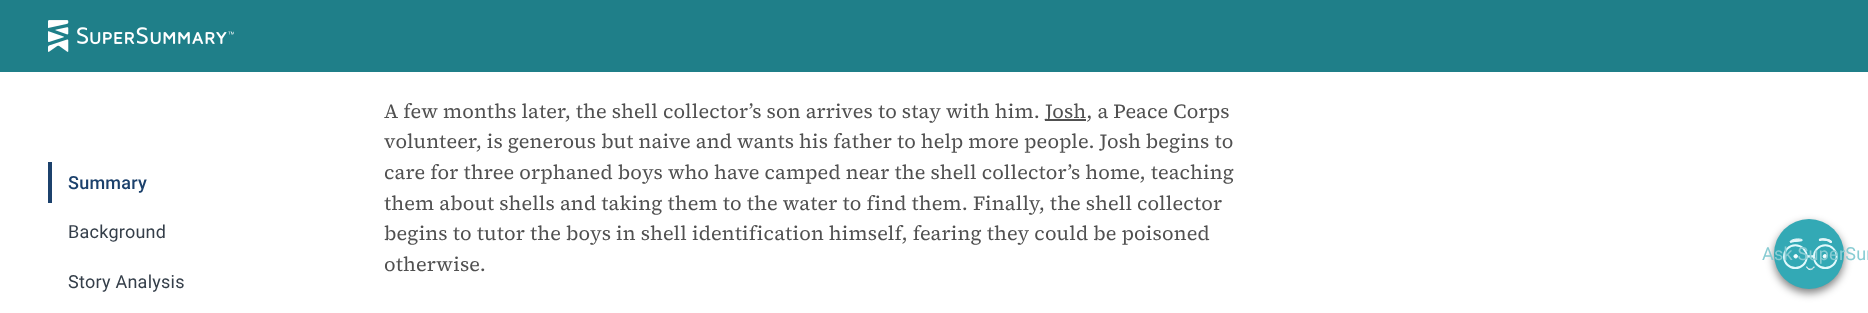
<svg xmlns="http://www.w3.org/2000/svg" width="1868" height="313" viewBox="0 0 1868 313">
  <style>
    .t1 { font: 500 18px Roboto; letter-spacing: 0.25px; fill: #1c416c; }
    .t2 { font: 18px Roboto; letter-spacing: 0.25px; fill: #343e49; }
    .t3 { font: 20px 'Source Serif 4'; letter-spacing: 0.15px; fill: #505050; }
    .t4 { font: 18px Roboto; letter-spacing: 0.25px; fill: #88ccd3; }
  </style>
  <rect width="100%" height="100%" fill="#fff"/>
  <rect x="0" y="0" width="1868" height="72" fill="#1f7f89"/>
  <image x="48" y="20" width="186" height="32" href="images/1.png"/>
  <rect x="48" y="162" width="4" height="41" fill="#1c416c"/>
  <text x="68" y="189" class="t1">Summary</text>
  <text x="68" y="238" class="t2">Background</text>
  <text x="68" y="288" class="t2">Story Analysis</text>
  <text x="384" y="118" class="t3">A few months later, the shell collector’s son arrives to stay with him.</text>
  <rect x="1045" y="119" width="41" height="2" fill="#505050"/>
  <text x="1045" y="118" class="t3">Josh, a Peace Corps</text>
  <text x="384" y="148" class="t3">volunteer, is generous but naive and wants his father to help more people. Josh begins to</text>
  <text x="384" y="179" class="t3">care for three orphaned boys who have camped near the shell collector’s home, teaching</text>
  <text x="384" y="210" class="t3">them about shells and taking them to the water to find them. Finally, the shell collector</text>
  <text x="384" y="240" class="t3">begins to tutor the boys in shell identification himself, fearing they could be poisoned</text>
  <text x="384" y="271" class="t3">otherwise.</text>
  <rect x="1774" y="223" width="70" height="70" rx="35" fill="#00000080" filter="blur(4px)"/>
  <circle cx="1809" cy="254" r="35" fill="#33a9b5"/>
  <image x="1783" y="238" width="55" height="33" href="images/2.png"/>
  <text x="1762" y="260" class="t4">Ask SuperSum</text>
</svg>
